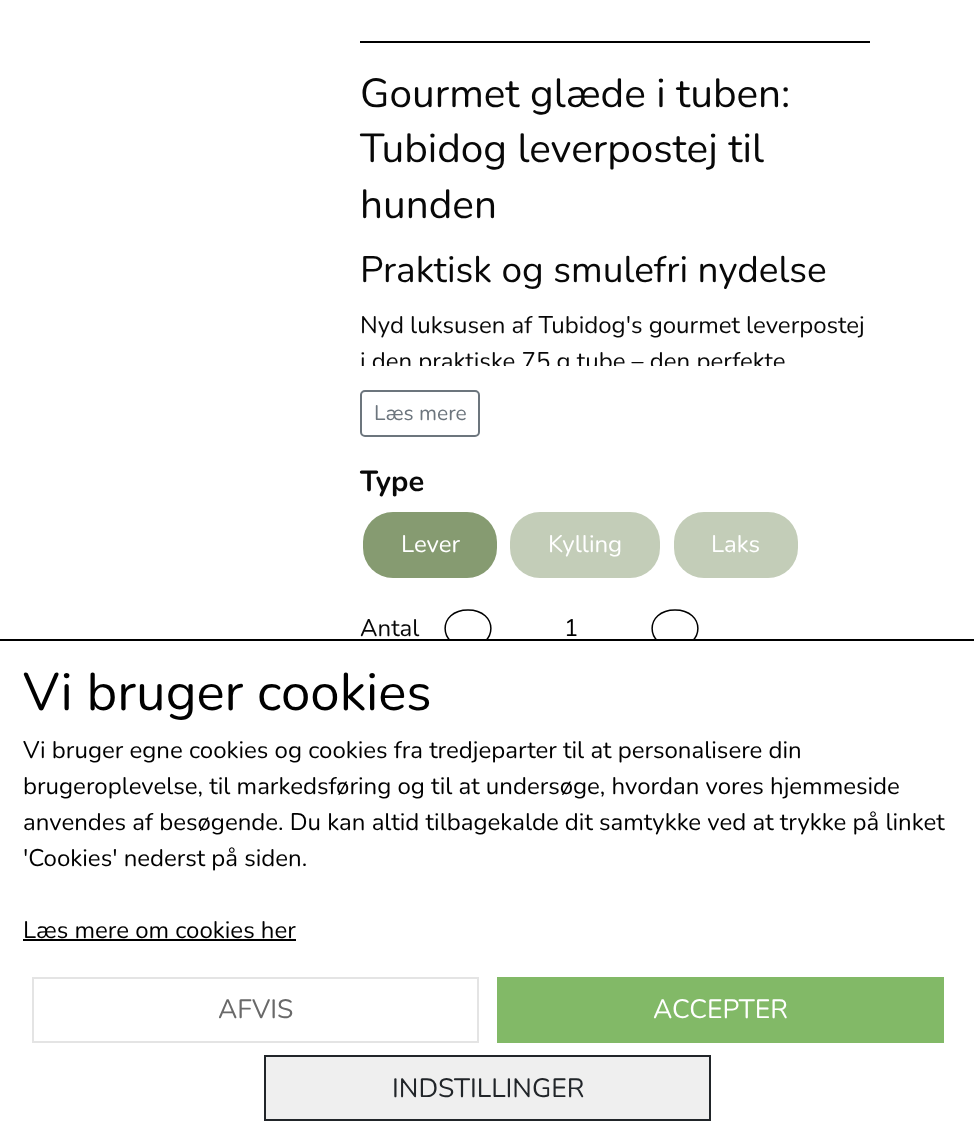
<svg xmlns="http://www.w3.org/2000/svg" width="974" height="1132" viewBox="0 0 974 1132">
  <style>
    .t1 { font: 40.5px Nunito; fill: #080808; }
    .t2 { font: 37px Nunito; fill: #080808; }
    .t3 { font: 24px Nunito; fill: #080808; }
    .t4 { font: 21px Nunito; fill: #6c757d; }
    .t5 { font: bold 29px Nunito; fill: #080808; }
    .t6 { font: 24px Nunito; fill: #fff; }
    .t7 { font: 24px Nunito; fill: #000; }
    .t8 { font: 52.75px Nunito; fill: #000; }
    .t9 { font: 26.5px Nunito; fill: #696969; }
    .t10 { font: 26.5px Nunito; fill: #fff; }
    .t11 { font: 26.5px Nunito; fill: #212529; }
  </style>
  <defs>
    <clipPath id="clip1"><rect x="360" y="66" width="510" height="300"/></clipPath>
  </defs>
  <rect width="100%" height="100%" fill="#fff"/>
  <rect x="360" y="41" width="510" height="2" fill="#000"/>
  <text x="360" y="107" class="t1">Gourmet glæde i tuben:</text>
  <text x="360" y="162" class="t1">Tubidog leverpostej til</text>
  <text x="360" y="218" class="t1">hunden</text>
  <text x="360" y="282" class="t2">Praktisk og smulefri nydelse</text>
  <text x="360" y="333" class="t3">Nyd luksusen af Tubidog's gourmet leverpostej</text>
  <g clip-path="url(#clip1)">
    <text x="360" y="369" class="t3">i den praktiske 75 g tube – den perfekte</text>
  </g>
  <rect x="361" y="391" width="118" height="45" rx="4" fill="none" stroke="#6c757d" stroke-width="2"/>
  <text x="374" y="420" class="t4">Læs mere</text>
  <text x="360" y="491" class="t5">Type</text>
  <rect x="363" y="512" width="134" height="66" rx="30" fill="#869b71"/>
  <text x="401" y="552" class="t6">Lever</text>
  <rect x="510" y="512" width="150" height="66" rx="30" fill="#c3cdb8"/>
  <text x="548" y="552" class="t6">Kylling</text>
  <rect x="674" y="512" width="124" height="66" rx="30" fill="#c3cdb8"/>
  <text x="711" y="552" class="t6">Laks</text>
  <text x="360" y="636" class="t3">Antal</text>
  <path d="M468 610C498.5 610 498.5 647 468 647C437.5 647 437.5 610 468 610Z" fill="none" stroke="#000" stroke-width="1.5"/>
  <text x="564" y="636" class="t7">1</text>
  <path d="M675 610C705.5 610 705.5 647 675 647C644.5 647 644.5 610 675 610Z" fill="none" stroke="#000" stroke-width="1.5"/>
  <rect x="449" y="641" width="245" height="7" fill="#fff"/>
  <rect x="0" y="639" width="974" height="2" fill="#000"/>
  <text x="23" y="710" class="t8">Vi bruger cookies</text>
  <text x="23" y="758" class="t7">Vi bruger egne cookies og cookies fra tredjeparter til at personalisere din</text>
  <text x="23" y="794" class="t7">brugeroplevelse, til markedsføring og til at undersøge, hvordan vores hjemmeside</text>
  <text x="23" y="830" class="t7">anvendes af besøgende. Du kan altid tilbagekalde dit samtykke ved at trykke på linket</text>
  <text x="23" y="866" class="t7">'Cookies' nederst på siden.</text>
  <text x="23" y="938" class="t7">Læs mere om cookies her</text>
  <rect x="23" y="939" width="273" height="2" fill="#000"/>
  <rect x="33" y="978" width="445" height="64" fill="none" stroke="#e4e4e4" stroke-width="2"/>
  <text x="218" y="1018" class="t9">AFVIS</text>
  <rect x="497" y="977" width="447" height="66" fill="#82b967"/>
  <text x="653" y="1018" class="t10">ACCEPTER</text>
  <rect x="265" y="1056" width="445" height="64" fill="#efefef" stroke="#212529" stroke-width="2"/>
  <text x="392" y="1097" class="t11">INDSTILLINGER</text>
</svg>
